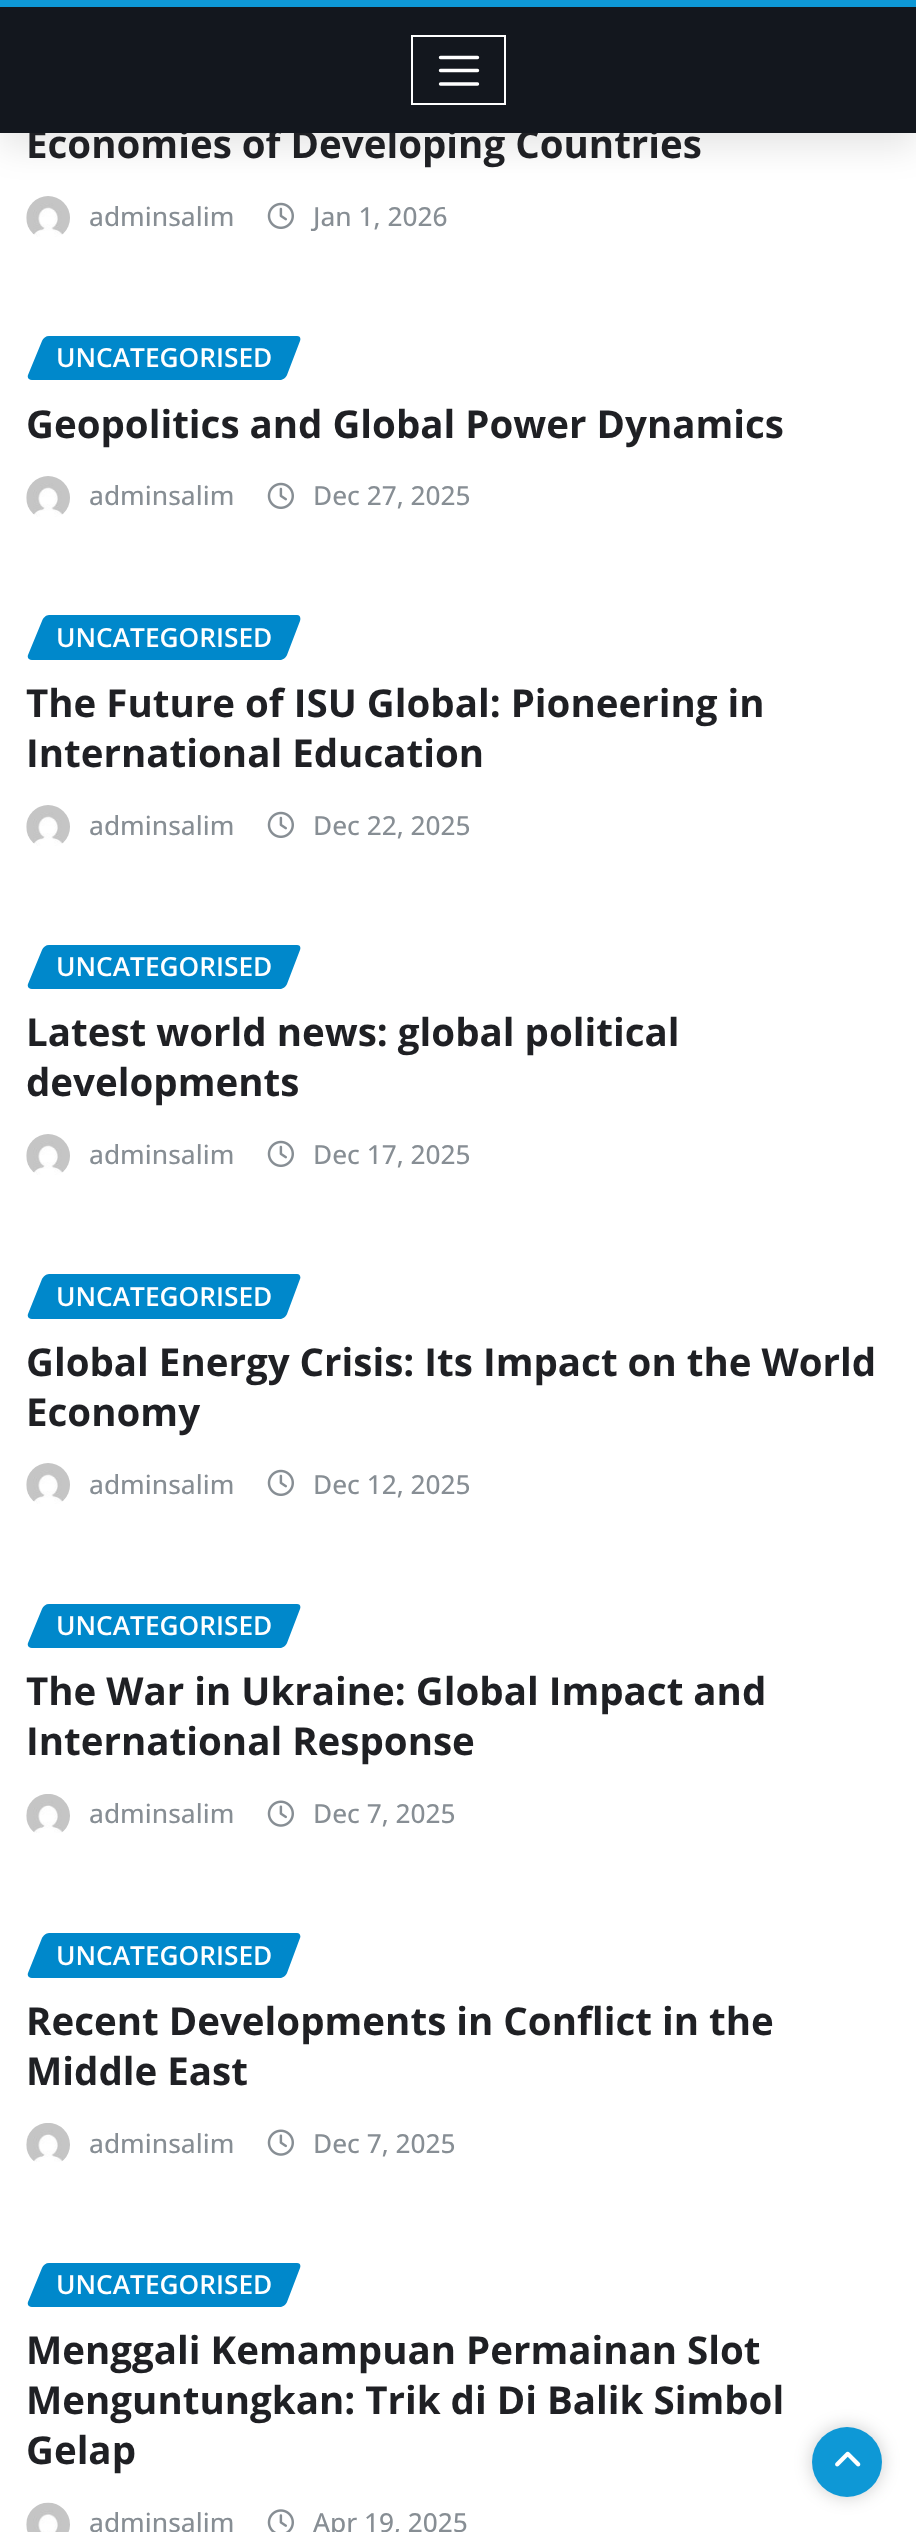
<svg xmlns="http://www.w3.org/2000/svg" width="916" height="2532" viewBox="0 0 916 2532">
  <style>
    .t1 { font: bold 38.5px Open Sans; fill: #1f2024; }
    .t2 { font: 500 26.25px Open Sans; fill: #878e94; }
    .t3 { font: 600 26.25px Open Sans; fill: #fff; }
  </style>
  <rect width="100%" height="100%" fill="#fff"/>
  <image x="26" y="196" width="44" height="41" href="images/1.png"/>
  <rect x="0" y="14" width="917" height="133" fill="#0000001a" filter="blur(17.5px)"/>
  <text x="26" y="158" class="t1">Economies of Developing Countries</text>
  <rect x="0" y="7" width="916" height="126" fill="#13171e"/>
  <rect x="0" y="0" width="916" height="7" fill="#0e98d6"/>
  <rect x="412" y="36" width="93" height="68" fill="none" stroke="#fff" stroke-width="2"/>
  <path d="M440.5 57.5H477.5M440.5 70.5H477.5M440.5 84H477.5" fill="none" stroke="#fff" stroke-width="3.4" stroke-linecap="round"/>
  <text x="89" y="226" class="t2">adminsalim</text>
  <image x="267" y="202" width="27" height="27" href="images/2.png"/>
  <text x="313" y="226" class="t2">Jan 1, 2026</text>
  <path d="M49 336H297C300 336 301 338 300 341L287 375C286 378 282 380 280 380H32C29 380 27 378 28 375L42 341C43 338 46 336 49 336Z" fill="#0088cb"/>
  <text x="56" y="367" class="t3">UNCATEGORISED</text>
  <text x="26" y="438" class="t1">Geopolitics and Global Power Dynamics</text>
  <image x="26" y="476" width="44" height="41" href="images/1.png"/>
  <text x="89" y="505" class="t2">adminsalim</text>
  <image x="267" y="482" width="27" height="27" href="images/2.png"/>
  <text x="313" y="505" class="t2">Dec 27, 2025</text>
  <path d="M49 615H297C300 615 301 618 300 621L287 655C286 658 282 660 280 660H32C29 660 27 658 28 655L42 621C43 618 46 615 49 615Z" fill="#0088cb"/>
  <text x="56" y="647" class="t3">UNCATEGORISED</text>
  <text x="26" y="717" class="t1">The Future of ISU Global: Pioneering in</text>
  <text x="26" y="767" class="t1">International Education</text>
  <image x="26" y="805" width="44" height="41" href="images/3.png"/>
  <text x="89" y="835" class="t2">adminsalim</text>
  <image x="267" y="811" width="27" height="27" href="images/2.png"/>
  <text x="313" y="835" class="t2">Dec 22, 2025</text>
  <path d="M49 945H297C300 945 301 947 300 950L287 984C286 987 282 989 280 989H32C29 989 27 987 28 984L42 950C43 947 46 945 49 945Z" fill="#0088cb"/>
  <text x="56" y="976" class="t3">UNCATEGORISED</text>
  <text x="26" y="1046" class="t1">Latest world news: global political</text>
  <text x="26" y="1096" class="t1">developments</text>
  <image x="26" y="1134" width="44" height="41" href="images/1.png"/>
  <text x="89" y="1164" class="t2">adminsalim</text>
  <image x="267" y="1140" width="27" height="27" href="images/2.png"/>
  <text x="313" y="1164" class="t2">Dec 17, 2025</text>
  <path d="M49 1274H297C300 1274 301 1277 300 1279L287 1314C286 1317 282 1319 280 1319H32C29 1319 27 1317 28 1314L42 1279C43 1277 46 1274 49 1274Z" fill="#0088cb"/>
  <text x="56" y="1306" class="t3">UNCATEGORISED</text>
  <text x="26" y="1376" class="t1">Global Energy Crisis: Its Impact on the World</text>
  <text x="26" y="1426" class="t1">Economy</text>
  <image x="26" y="1463" width="44" height="41" href="images/1.png"/>
  <text x="89" y="1494" class="t2">adminsalim</text>
  <image x="267" y="1469" width="27" height="27" href="images/2.png"/>
  <text x="313" y="1494" class="t2">Dec 12, 2025</text>
  <path d="M49 1604H297C300 1604 301 1606 300 1609L287 1643C286 1646 282 1648 280 1648H32C29 1648 27 1646 28 1643L42 1609C43 1606 46 1604 49 1604Z" fill="#0088cb"/>
  <text x="56" y="1635" class="t3">UNCATEGORISED</text>
  <text x="26" y="1705" class="t1">The War in Ukraine: Global Impact and</text>
  <text x="26" y="1755" class="t1">International Response</text>
  <image x="26" y="1794" width="44" height="39" href="images/4.png"/>
  <text x="89" y="1823" class="t2">adminsalim</text>
  <image x="267" y="1800" width="27" height="27" href="images/5.png"/>
  <text x="313" y="1823" class="t2">Dec 7, 2025</text>
  <path d="M49 1933H297C300 1933 301 1936 300 1938L287 1973C286 1976 282 1978 280 1978H32C29 1978 27 1976 28 1973L42 1938C43 1936 46 1933 49 1933Z" fill="#0088cb"/>
  <text x="56" y="1965" class="t3">UNCATEGORISED</text>
  <text x="26" y="2035" class="t1">Recent Developments in Conflict in the</text>
  <text x="26" y="2085" class="t1">Middle East</text>
  <image x="26" y="2123" width="44" height="39" href="images/6.png"/>
  <text x="89" y="2153" class="t2">adminsalim</text>
  <image x="267" y="2129" width="27" height="27" href="images/5.png"/>
  <text x="313" y="2153" class="t2">Dec 7, 2025</text>
  <path d="M49 2263H297C300 2263 301 2265 300 2268L287 2302C286 2305 282 2307 280 2307H32C29 2307 27 2305 28 2302L42 2268C43 2265 46 2263 49 2263Z" fill="#0088cb"/>
  <text x="56" y="2294" class="t3">UNCATEGORISED</text>
  <text x="26" y="2364" class="t1">Menggali Kemampuan Permainan Slot</text>
  <text x="26" y="2414" class="t1">Menguntungkan: Trik di Di Balik Simbol</text>
  <text x="26" y="2464" class="t1">Gelap</text>
  <image x="26" y="2502" width="44" height="30" href="images/7.png"/>
  <text x="89" y="2532" class="t2">adminsalim</text>
  <image x="267" y="2509" width="27" height="23" href="images/8.png"/>
  <text x="313" y="2532" class="t2">Apr 19, 2025</text>
  <rect x="812" y="2427" width="70" height="70" rx="35" fill="#00000033" filter="blur(9px)"/>
  <circle cx="847" cy="2462" r="35" fill="#0e98d6"/>
  <image x="835" y="2451" width="26" height="16" href="images/9.png"/>
</svg>
